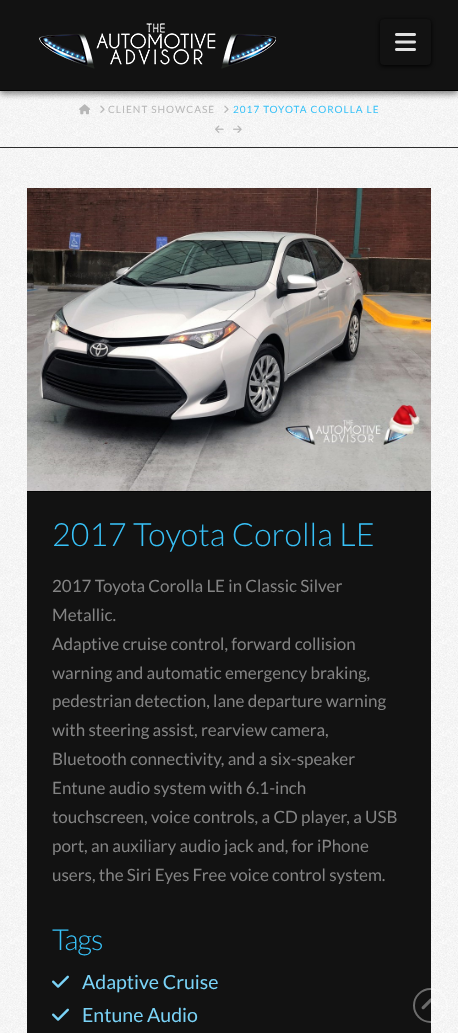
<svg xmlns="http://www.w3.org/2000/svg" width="458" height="1033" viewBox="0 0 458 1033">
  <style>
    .t1 { font: 10px Lato; letter-spacing: 1px; fill: #b7b7b7; }
    .t2 { font: 10px Lato; letter-spacing: 1px; fill: #38c1f7; }
    .t3 { font: 300 32px Lato; letter-spacing: 0.1px; fill: #38c1f7; }
    .t4 { font: 17px Lato; fill: #848484; }
    .t5 { font: 300 29px Lato; letter-spacing: -1px; fill: #38c1f7; }
    .t6 { font: 19.5px Lato; fill: #7ad3f7; }
  </style>
  <rect width="100%" height="100%" fill="#fff"/>
  <image x="0" y="91" width="458" height="942" href="images/1.png"/>
  <rect x="0" y="3" width="458" height="91" fill="#00000078" filter="blur(3px)"/>
  <rect x="0" y="0" width="458" height="90" fill="#121212"/>
  <rect x="0" y="90" width="458" height="1" fill="#000"/>
  <image x="39" y="23" width="237" height="46" href="images/2.png"/>
  <rect x="380" y="20" width="51" height="46" rx="4" fill="#000" filter="blur(2px)"/>
  <rect x="380" y="19" width="51" height="46" rx="4" fill="#121212"/>
  <image x="395" y="33" width="21" height="18" href="images/3.png"/>
  <rect x="0" y="147" width="458" height="1" fill="#000000d1"/>
  <image x="79" y="104" width="12" height="11" href="images/4.png"/>
  <image x="100" y="105" width="5" height="8" href="images/5.png"/>
  <text x="108" y="113" class="t1">CLIENT SHOWCASE</text>
  <image x="224" y="105" width="5" height="8" href="images/6.png"/>
  <text x="233" y="113" class="t2">2017 TOYOTA COROLLA LE</text>
  <image x="215" y="125" width="9" height="8" href="images/7.png"/>
  <image x="233" y="125" width="9" height="8" href="images/8.png"/>
  <rect x="27" y="491" width="404" height="1" fill="#050505"/>
  <image x="27" y="188" width="404" height="303" href="images/9.png"/>
  <rect x="27" y="492" width="404" height="541" fill="#121212"/>
  <text x="52" y="546" class="t3">2017 Toyota Corolla LE</text>
  <text x="52" y="592" class="t4">2017 Toyota Corolla LE in Classic Silver</text>
  <text x="52" y="621" class="t4">Metallic.</text>
  <text x="52" y="650" class="t4">Adaptive cruise control, forward collision</text>
  <text x="52" y="679" class="t4">warning and automatic emergency braking,</text>
  <text x="52" y="707" class="t4">pedestrian detection, lane departure warning</text>
  <text x="52" y="736" class="t4">with steering assist, rearview camera,</text>
  <text x="52" y="765" class="t4">Bluetooth connectivity, and a six-speaker</text>
  <text x="52" y="794" class="t4">Entune audio system with 6.1-inch</text>
  <text x="52" y="823" class="t4">touchscreen, voice controls, a CD player, a USB</text>
  <text x="52" y="852" class="t4">port, an auxiliary audio jack and, for iPhone</text>
  <text x="52" y="881" class="t4">users, the Siri Eyes Free voice control system.</text>
  <text x="52" y="950" class="t5">Tags</text>
  <image x="52" y="975" width="17" height="13" href="images/10.png"/>
  <text x="82" y="989" class="t6">Adaptive Cruise</text>
  <image x="52" y="1008" width="17" height="13" href="images/10.png"/>
  <text x="82" y="1022" class="t6">Entune Audio</text>
  <circle cx="430.5" cy="1005.5" r="16.5" fill="none" stroke="#ffffff61" stroke-width="2"/>
  <image x="421" y="998" width="18" height="12" href="images/11.png"/>
</svg>
